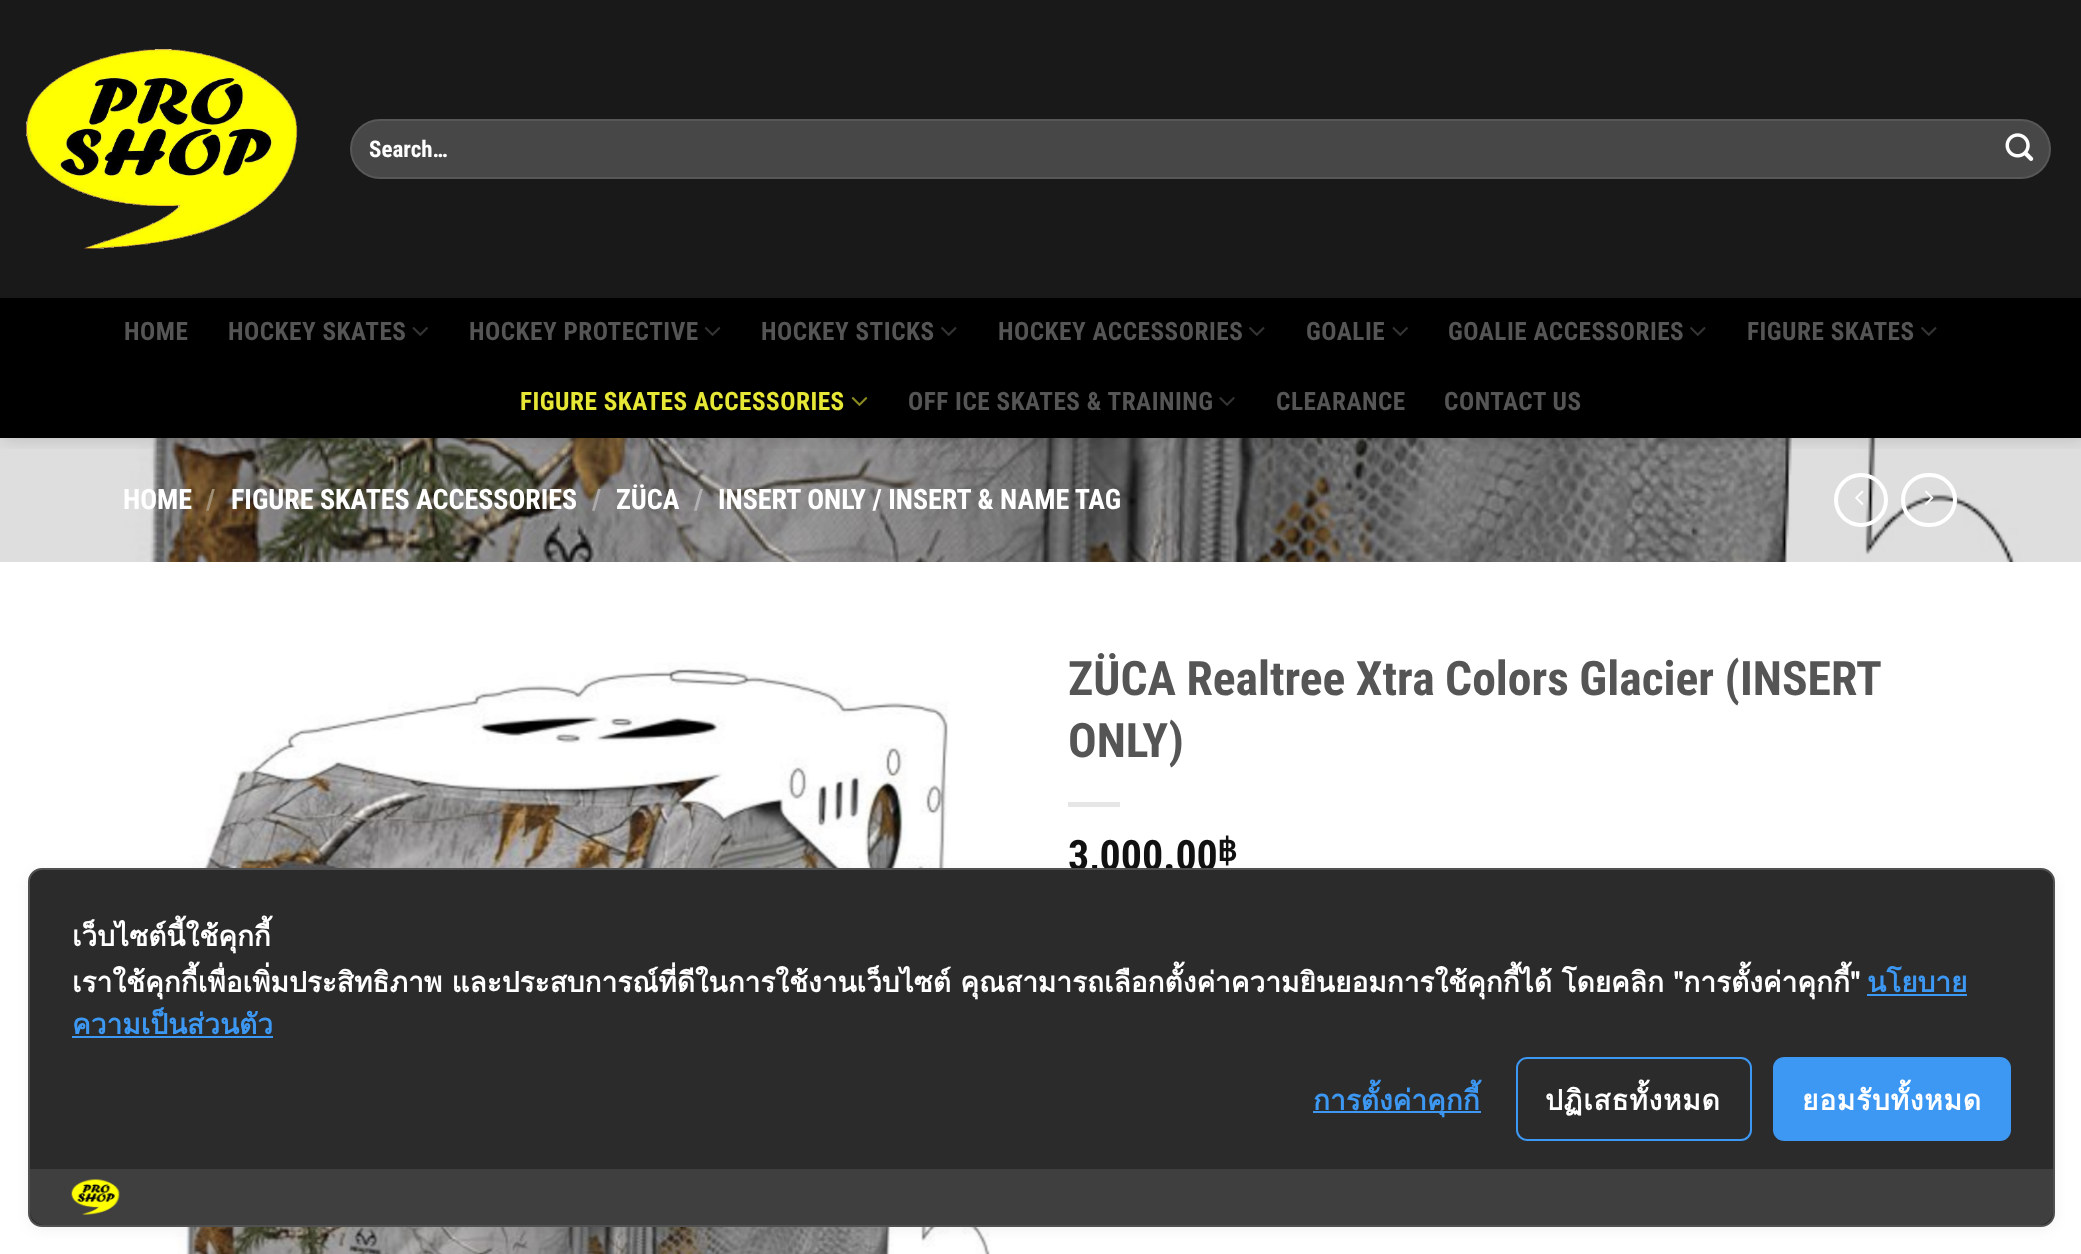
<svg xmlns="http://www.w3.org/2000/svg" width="2081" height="1254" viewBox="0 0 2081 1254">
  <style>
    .t1 { font: bold 23px Roboto Condensed; fill: #fff; }
    .t2 { font: bold 25.25px Roboto Condensed; letter-spacing: 0.5px; fill: #555; }
    .t3 { font: bold 25.25px Roboto Condensed; letter-spacing: 0.5px; fill: #e7e736; }
    .t4 { font: bold 28px Roboto Condensed; fill: #fff; }
    .t5 { font: bold 28px Roboto Condensed; fill: #a29076; }
    .t6 { font: bold 28px Roboto Condensed; fill: #adaaa9; }
    .t7 { font: bold 28px Roboto Condensed; fill: #b2b1b2; }
    .t8 { font: bold 47.6px Roboto Condensed; fill: #555; }
    .t9 { font: bold 42px Roboto Condensed; fill: #111; }
    .t10 { font: bold 32px DejaVu Sans; fill: #111; }
    .t11 { font: bold 28px Loma; fill: #fff; }
    .t12 { font: bold 28px Loma; fill: #3d98f3; }
    .t13 { font: bold 28px Loma; letter-spacing: 0.8px; fill: #fff; }
  </style>
  <defs>
    <clipPath id="clip1"><rect x="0" y="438" width="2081" height="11"/></clipPath>
  </defs>
  <rect width="100%" height="100%" fill="#fff"/>
  <image x="0" y="438" width="2081" height="124" href="images/8.png"/>
  <g clip-path="url(#clip1)">
    <rect x="2" y="2" width="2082" height="437" fill="#00000026" filter="blur(9px)"/>
  </g>
  <rect x="0" y="0" width="2081" height="298" fill="#000000e6"/>
  <image x="26" y="49" width="272" height="200" href="images/1.png"/>
  <rect x="350" y="119" width="1701" height="60" rx="30" fill="#474747"/>
  <rect x="351" y="120" width="1699" height="58" rx="29" fill="none" stroke="#ffffff17" stroke-width="2"/>
  <text x="369" y="157" class="t1">Search…</text>
  <image x="2005" y="133" width="29" height="28" href="images/2.png"/>
  <rect x="0" y="298" width="2081" height="140" fill="#000"/>
  <text x="124" y="340" class="t2">HOME</text>
  <text x="228" y="340" class="t2">HOCKEY SKATES</text>
  <image x="412" y="327" width="16" height="9" href="images/3.png"/>
  <text x="469" y="340" class="t2">HOCKEY PROTECTIVE</text>
  <image x="704" y="327" width="17" height="9" href="images/4.png"/>
  <text x="761" y="340" class="t2">HOCKEY STICKS</text>
  <image x="941" y="327" width="16" height="9" href="images/5.png"/>
  <text x="998" y="340" class="t2">HOCKEY ACCESSORIES</text>
  <image x="1249" y="327" width="16" height="9" href="images/5.png"/>
  <text x="1306" y="340" class="t2">GOALIE</text>
  <image x="1392" y="327" width="16" height="9" href="images/3.png"/>
  <text x="1448" y="340" class="t2">GOALIE ACCESSORIES</text>
  <image x="1690" y="327" width="16" height="9" href="images/5.png"/>
  <text x="1747" y="340" class="t2">FIGURE SKATES</text>
  <image x="1921" y="327" width="16" height="9" href="images/5.png"/>
  <text x="520" y="410" class="t3">FIGURE SKATES ACCESSORIES</text>
  <image x="851" y="397" width="17" height="9" href="images/6.png"/>
  <text x="908" y="410" class="t2">OFF ICE SKATES &amp; TRAINING</text>
  <image x="1219" y="397" width="16" height="9" href="images/7.png"/>
  <text x="1276" y="410" class="t2">CLEARANCE</text>
  <text x="1444" y="410" class="t2">CONTACT US</text>
  <text x="123" y="509" class="t4">HOME</text>
  <text x="206" y="509" class="t5">/</text>
  <text x="231" y="509" class="t4">FIGURE SKATES ACCESSORIES</text>
  <text x="592" y="509" class="t6">/</text>
  <text x="616" y="509" class="t4">ZÜCA</text>
  <text x="694" y="509" class="t7">/</text>
  <text x="718" y="509" class="t4">INSERT ONLY / INSERT &amp; NAME TAG</text>
  <circle cx="1861" cy="500" r="25" fill="none" stroke="#fff" stroke-width="4"/>
  <image x="1855" y="490" width="9" height="15" href="images/9.png"/>
  <rect x="1903" y="475" width="52" height="50" rx="25" fill="none" stroke="#fff" stroke-width="4"/>
  <image x="1925" y="490" width="9" height="15" href="images/10.png"/>
  <image x="123" y="662" width="892" height="592" href="images/11.png"/>
  <text x="1068" y="695" word-spacing="-0.5" class="t8">ZÜCA Realtree Xtra Colors Glacier (INSERT</text>
  <text x="1068" y="757" class="t8">ONLY)</text>
  <rect x="1068" y="802" width="52" height="5" fill="#e6e6e6"/>
  <text x="1068" y="870" class="t9">3,000.00</text>
  <text x="1217" y="861" class="t10">฿</text>
  <rect x="28" y="872" width="2027" height="358" rx="14" fill="#0000000d" filter="blur(7px)"/>
  <rect x="29" y="869" width="2025" height="357" rx="13" fill="#2b2b2b" stroke="#505050" stroke-width="2"/>
  <text x="72" y="946" class="t11">เว็บไซต์นี้ใช้คุกกี้</text>
  <text x="72" y="992" class="t11">เราใช้คุกกี้เพื่อเพิ่มประสิทธิภาพ และประสบการณ์ที่ดีในการใช้งานเว็บไซต์ คุณสามารถเลือกตั้งค่าความยินยอมการใช้คุกกี้ได้ โดยคลิก "การตั้งค่าคุกกี้"</text>
  <text x="1867" y="992" class="t12">นโยบาย</text>
  <rect x="1867" y="994" width="100" height="2" fill="#3d98f3"/>
  <text x="72" y="1034" class="t12">ความเป็นส่วนตัว</text>
  <rect x="72" y="1036" width="201" height="2" fill="#3d98f3"/>
  <rect x="1313" y="1111" width="168" height="2" fill="#3d98f3"/>
  <text x="1313" y="1110" class="t12">การตั้งค่าคุกกี้</text>
  <rect x="1517" y="1058" width="234" height="82" rx="10" fill="none" stroke="#3d98f3" stroke-width="2"/>
  <text x="1545" y="1110" class="t13">ปฏิเสธทั้งหมด</text>
  <rect x="1773" y="1057" width="238" height="84" rx="11" fill="#3d98f3"/>
  <text x="1802" y="1110" class="t13">ยอมรับทั้งหมด</text>
  <path d="M30 1169H2053V1211C2053 1218.5 2046.5 1225 2039 1225H44C36.5 1225 30 1218.5 30 1211Z" fill="#3f3f3f"/>
  <image x="71" y="1179" width="49" height="36" href="images/12.png"/>
</svg>
